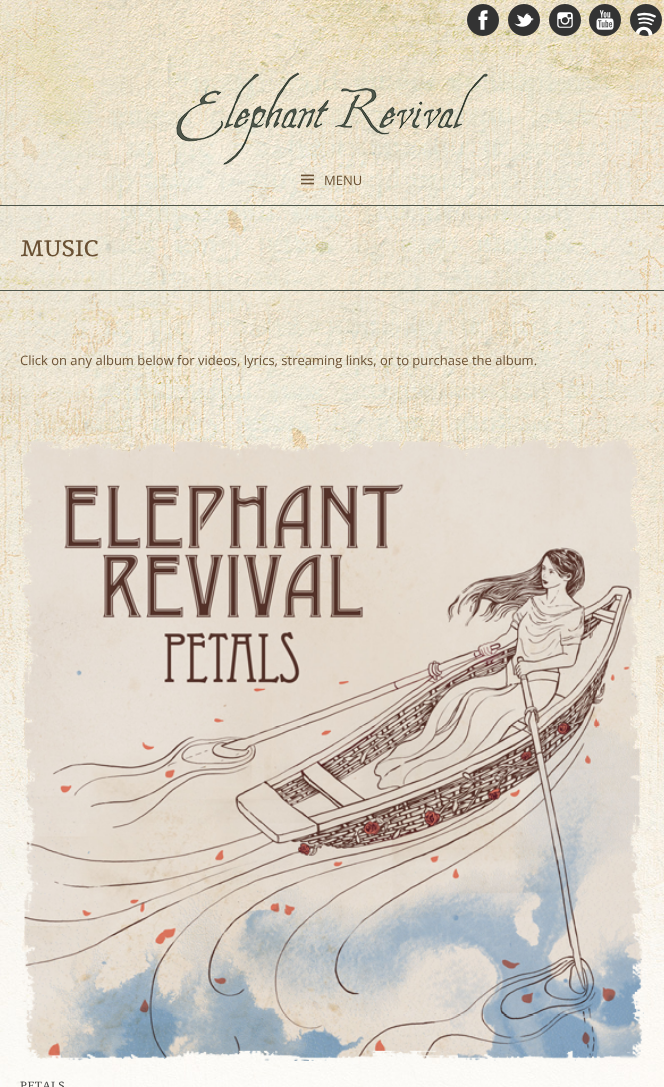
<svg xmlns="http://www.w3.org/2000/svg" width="664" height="1087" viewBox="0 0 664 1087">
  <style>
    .t1 { font: 13px Open Sans; fill: #6a5134; }
    .t2 { font: 32px Suravaram; fill: #6a5134; }
    .t3 { font: 15px Suravaram; letter-spacing: 0.5px; fill: #444443; }
  </style>
  <rect width="100%" height="100%" fill="#fff"/>
  <image x="0" y="0" width="664" height="1087" href="images/1.png"/>
  <image x="467" y="4" width="32" height="32" href="images/2.png"/>
  <image x="508" y="4" width="32" height="32" href="images/3.png"/>
  <image x="549" y="4" width="32" height="32" href="images/4.png"/>
  <image x="589" y="4" width="32" height="32" href="images/5.png"/>
  <image x="630" y="4" width="32" height="32" href="images/6.png"/>
  <image x="176" y="72" width="312" height="93" href="images/7.png"/>
  <image x="301" y="174" width="13" height="11" href="images/8.png"/>
  <text x="324" y="185" class="t1">MENU</text>
  <rect x="0" y="205" width="664" height="1" fill="#4e564b"/>
  <rect x="0" y="290" width="664" height="1" fill="#4e564b"/>
  <text x="20" y="256" class="t2">MUSIC</text>
  <text x="20" y="365" class="t1">Click on any album below for videos, lyrics, streaming links, or to purchase the album.</text>
  <image x="22" y="437" width="622" height="624" href="images/9.png"/>
  <text x="20" y="1089" class="t3">PETALS</text>
</svg>
